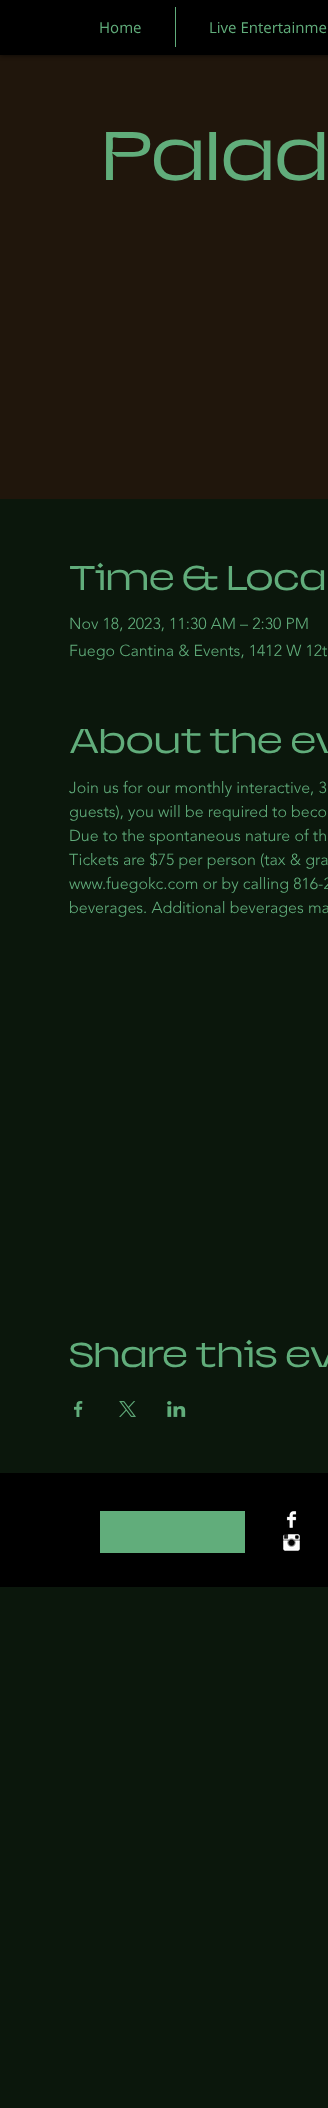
<svg xmlns="http://www.w3.org/2000/svg" width="328" height="2108" viewBox="0 0 328 2108">
  <style>
    .t1 { font: 15px Open Sans; fill: #61ad7b; }
    .t2 { font: 60px 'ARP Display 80'; fill: #61ad7b; }
    .t3 { font: 30px 'ARP Display 80'; fill: #61ad7b; }
    .t4 { font: 300 16px 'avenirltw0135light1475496'; fill: #61ad7b; }
  </style>
  <rect width="100%" height="100%" fill="#0b170c"/>
  <rect x="0" y="55" width="328" height="444" fill="#20160c"/>
  <rect x="0" y="0" width="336" height="55" fill="#000000b3" filter="blur(2.5px)"/>
  <rect x="0" y="0" width="328" height="55" fill="#000"/>
  <text x="99" y="33" class="t1">Home</text>
  <rect x="175" y="7" width="1" height="40" fill="#61ad7b"/>
  <text x="209" y="33" class="t1">Live Entertainme</text>
  <text x="101" y="180" class="t2">Palad</text>
  <text x="69" y="590" class="t3">Time &amp; Loca</text>
  <text x="69" y="629" class="t4">Nov 18, 2023, 11:30 AM – 2:30 PM</text>
  <text x="69" y="656" class="t4">Fuego Cantina &amp; Events, 1412 W 12t</text>
  <text x="69" y="753" class="t3">About the ev</text>
  <text x="69" y="793" class="t4">Join us for our monthly interactive, 3</text>
  <text x="69" y="817" class="t4">guests), you will be required to beco</text>
  <text x="69" y="841" class="t4">Due to the spontaneous nature of th</text>
  <text x="69" y="865" class="t4">Tickets are $75 per person (tax &amp; gra</text>
  <text x="69" y="889" class="t4">www.fuegokc.com or by calling 816-2</text>
  <text x="69" y="913" class="t4">beverages. Additional beverages ma</text>
  <text x="69" y="1367" class="t3">Share this ev</text>
  <image x="74" y="1401" width="9" height="16" href="images/1.png"/>
  <image x="119" y="1401" width="17" height="16" href="images/2.png"/>
  <image x="167" y="1401" width="19" height="16" href="images/3.png"/>
  <rect x="0" y="1473" width="328" height="114" fill="#000"/>
  <rect x="100" y="1511" width="145" height="42" fill="#61ad7b"/>
  <image x="286" y="1511" width="11" height="17" href="images/4.png"/>
  <image x="283" y="1534" width="17" height="17" href="images/5.png"/>
</svg>
